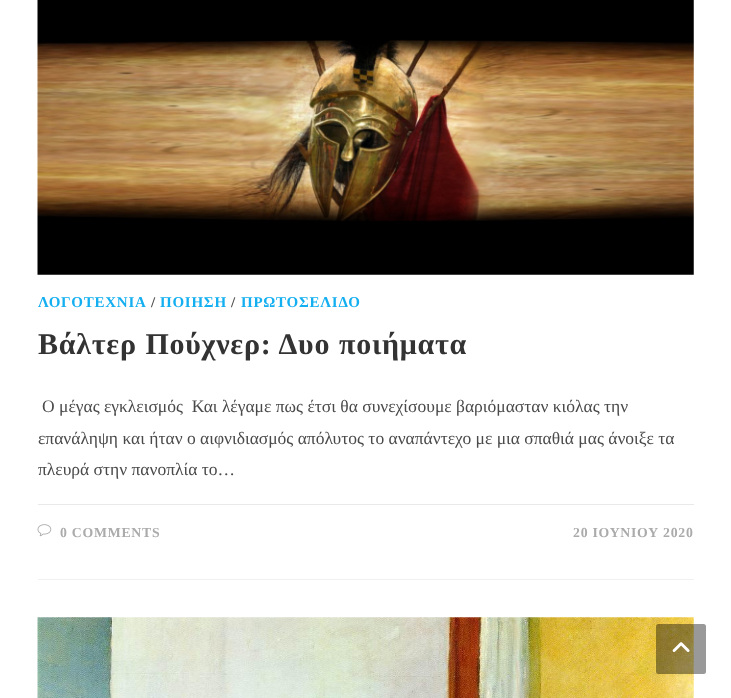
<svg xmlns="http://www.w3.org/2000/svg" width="731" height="698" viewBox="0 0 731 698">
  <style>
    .t1 { font: bold 15px Tinos; letter-spacing: 0.75px; fill: #13aff0; }
    .t2 { font: bold 15px Tinos; letter-spacing: 0.75px; fill: #4a4a4a; }
    .t3 { font: bold 30px Tinos; letter-spacing: 0.75px; fill: #333; }
    .t4 { font: 17.5px Tinos; fill: #4a4a4a; }
    .t5 { font: bold 13.75px Tinos; letter-spacing: 0.75px; fill: #ababab; }
  </style>
  <rect width="100%" height="100%" fill="#fff"/>
  <rect x="38" y="579" width="656" height="1" fill="#f1f1f1"/>
  <image x="37" y="0" width="657" height="275" href="images/1.png"/>
  <text x="38" y="307" class="t1">ΛΟΓΟΤΕΧΝΙΑ</text>
  <text x="151" y="307" class="t2">/</text>
  <text x="160" y="307" class="t1">ΠΟΙΗΣΗ</text>
  <text x="231" y="307" class="t2">/</text>
  <text x="241" y="307" class="t1">ΠΡΩΤΟΣΕΛΙΔΟ</text>
  <text x="38" y="354" word-spacing="0.5" class="t3">Βάλτερ Πούχνερ: Δυο ποιήματα</text>
  <text x="42" y="412" class="t4" xml:space="preserve">Ο μέγας εγκλεισμός  Και λέγαμε πως έτσι θα συνεχίσουμε βαριόμασταν κιόλας την</text>
  <text x="38" y="444" class="t4">επανάληψη και ήταν ο αιφνιδιασμός απόλυτος το αναπάντεχο με μια σπαθιά μας άνοιξε τα</text>
  <text x="38" y="475" class="t4">πλευρά στην πανοπλία το…</text>
  <rect x="38" y="504" width="656" height="1" fill="#e9e9e9"/>
  <image x="37" y="524" width="15" height="13" href="images/2.png"/>
  <text x="60" y="537" class="t5">0 COMMENTS</text>
  <text x="573" y="537" class="t5">20 ΙΟΥΝΙΟΥ 2020</text>
  <image x="37" y="617" width="657" height="81" href="images/3.png"/>
  <rect x="656" y="624" width="50" height="50" rx="2.5" fill="#00000066"/>
  <image x="672" y="642" width="18" height="10" href="images/4.png"/>
</svg>
